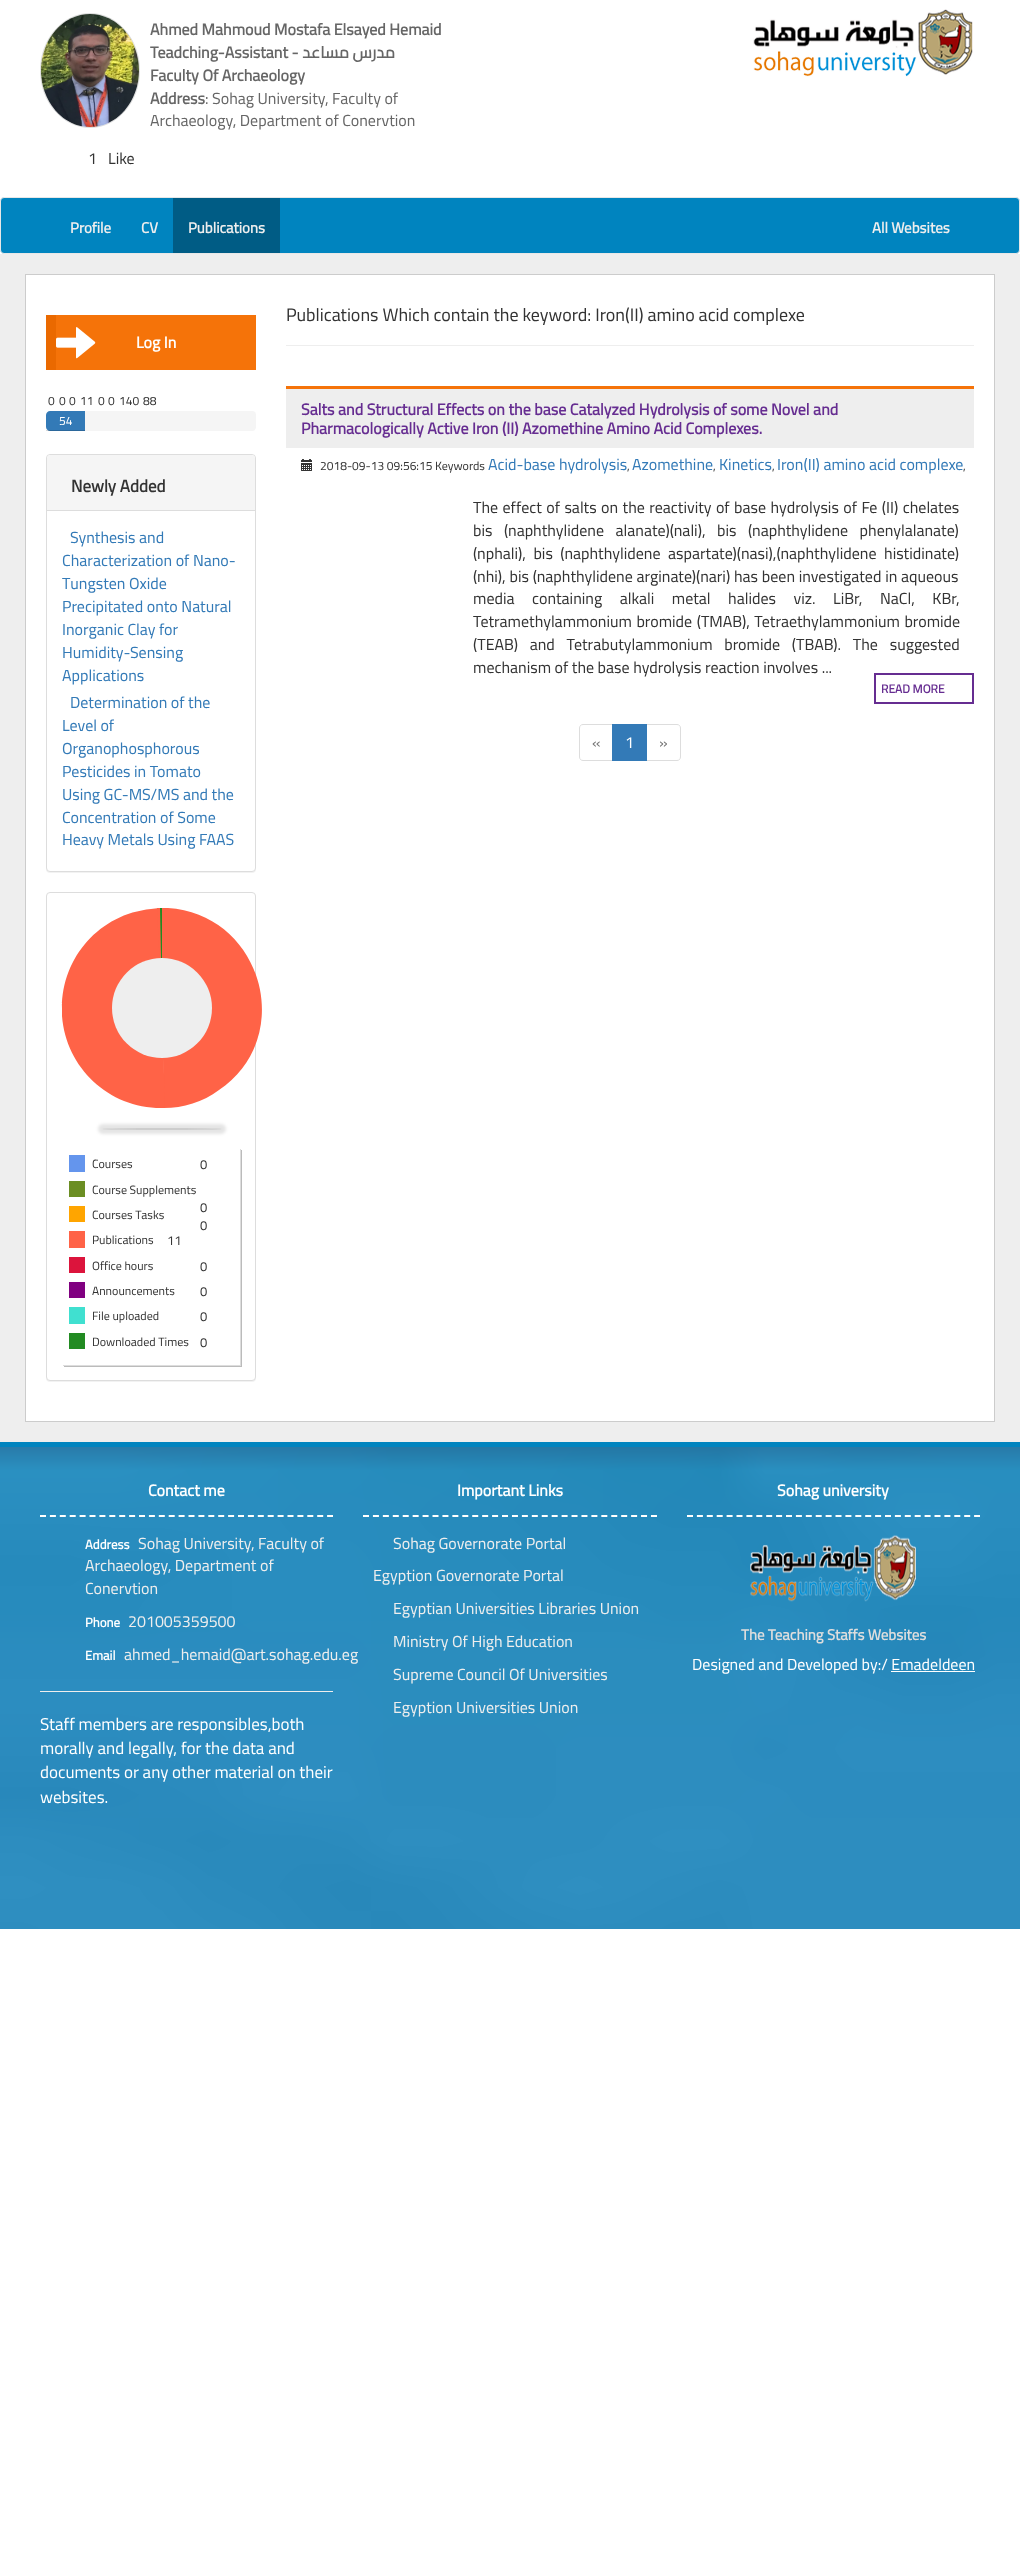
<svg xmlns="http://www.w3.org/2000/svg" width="1020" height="2550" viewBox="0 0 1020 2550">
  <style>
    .t1 { font: bold 16px Cairo; fill: #666; }
    .t2 { font: bold 16px Cairo; direction: rtl; fill: #666; }
    .t3 { font: 16px Cairo; fill: #666; }
    .t4 { font: 16px Cairo; fill: #333; }
    .t5 { font: bold 15px Cairo; fill: #eee; }
    .t6 { font: bold 16px Cairo; fill: #fff; }
    .t7 { font: 12px Cairo; fill: #333; }
    .t8 { font: 12px Cairo; fill: #fff; }
    .t9 { font: bold 17px Cairo; fill: #333; }
    .t10 { font: 16px Cairo; fill: #337ab7; }
    .t11 { font: 13px Cairo; fill: #333; }
    .t12 { font: 18px Cairo; fill: #333; }
    .t13 { font: bold 16px Cairo; fill: #662d91; }
    .t14 { font: bold 12px Cairo; fill: #662d91; }
    .t15 { font: 16px Cairo; fill: #777; }
    .t16 { font: 16px Cairo; fill: #fff; }
    .t17 { font: bold 13px Cairo; fill: #fff; }
    .t18 { font: 16px Cairo; fill: #eee; }
    .t19 { font: 17px Cairo; fill: #fff; }
    .t20 { font: bold 15px Cairo; fill: #ddd; }
  </style>
  <defs>
    <clipPath id="clip1"><rect x="62" y="908" width="100" height="200"/></clipPath>
  </defs>
  <rect width="100%" height="100%" fill="#fff"/>
  <path d="M90 13.5C117.5 13.5 139.5 39 139.5 70.5C139.5 102 117.5 127.5 90 127.5C62.5 127.5 40.5 102 40.5 70.5C40.5 39 62.5 13.5 90 13.5Z" fill="none" stroke="#ddd"/>
  <image x="41" y="14" width="98" height="113" href="images/1.png"/>
  <text x="150" y="35" class="t1">Ahmed Mahmoud Mostafa Elsayed Hemaid</text>
  <text x="150" y="58" class="t1">Teadching-Assistant -</text>
  <text x="395" y="58" class="t2">مدرس مساعد</text>
  <text x="150" y="81" class="t1">Faculty Of Archaeology</text>
  <text x="150" y="104" class="t1">Address</text>
  <text x="205" y="104" class="t3">: Sohag University, Faculty of</text>
  <text x="150" y="126" class="t3">Archaeology, Department of Conervtion</text>
  <text x="88" y="164" class="t4">1</text>
  <text x="108" y="164" class="t4">Like</text>
  <image x="753" y="9" width="220" height="68" href="images/2.png"/>
  <rect x="0.5" y="197.5" width="1019" height="56" rx="3.5" fill="#0084bf" stroke="#e7e7e7"/>
  <text x="70" y="233" class="t5">Profile</text>
  <text x="141" y="233" class="t5">CV</text>
  <rect x="173" y="198" width="107" height="55" fill="#005c85"/>
  <text x="188" y="233" class="t5">Publications</text>
  <text x="872" y="233" class="t5">All Websites</text>
  <rect x="0" y="254" width="1020" height="1188" fill="#eee"/>
  <rect x="25.5" y="274.5" width="969" height="1147" fill="#fff" stroke="#ccc"/>
  <rect x="56" y="315" width="200" height="55" fill="#f57309"/>
  <rect x="46" y="315" width="10" height="55" fill="#ea6900"/>
  <image x="56" y="327" width="40" height="32" href="images/3.png"/>
  <text x="136" y="348" class="t6">Log In</text>
  <text x="48" y="405" class="t7">0</text>
  <text x="59" y="405" class="t7">0</text>
  <text x="69" y="405" class="t7">0</text>
  <text x="80" y="405" class="t7">11</text>
  <text x="98" y="405" class="t7">0</text>
  <text x="108" y="405" class="t7">0</text>
  <text x="119" y="405" class="t7">140</text>
  <text x="143" y="405" class="t7">88</text>
  <rect x="46" y="411" width="210" height="20" rx="4" fill="#f5f5f5"/>
  <path d="M50 411H85V431H50C48 431 46 429 46 427V415C46 413 48 411 50 411Z" fill="#337ab7"/>
  <rect x="46" y="430" width="39" height="1" fill="#00000026"/>
  <text x="59" y="425" class="t8">54</text>
  <rect x="46" y="455" width="210" height="418" rx="4" fill="#0000000d" filter="blur(0.5px)"/>
  <rect x="46.5" y="454.5" width="209" height="417" rx="3.5" fill="#fff" stroke="#ddd"/>
  <path d="M50 455H252C253.5 455 255 456.5 255 458V511H47V458C47 456.5 48.5 455 50 455Z" fill="#f5f5f5"/>
  <rect x="47" y="510" width="208" height="1" fill="#ddd"/>
  <text x="71" y="492" class="t9">Newly Added</text>
  <text x="70" y="543" class="t10">Synthesis and</text>
  <text x="62" y="566" class="t10">Characterization of Nano-</text>
  <text x="62" y="589" class="t10">Tungsten Oxide</text>
  <text x="62" y="612" class="t10">Precipitated onto Natural</text>
  <text x="62" y="635" class="t10">Inorganic Clay for</text>
  <text x="62" y="658" class="t10">Humidity-Sensing</text>
  <text x="62" y="681" class="t10">Applications</text>
  <text x="70" y="708" class="t10">Determination of the</text>
  <text x="62" y="731" class="t10">Level of</text>
  <text x="62" y="754" class="t10">Organophosphorous</text>
  <text x="62" y="777" class="t10">Pesticides in Tomato</text>
  <text x="62" y="800" class="t10">Using GC-MS/MS and the</text>
  <text x="62" y="823" class="t10">Concentration of Some</text>
  <text x="62" y="845" class="t10">Heavy Metals Using FAAS</text>
  <rect x="46" y="893" width="210" height="489" rx="4" fill="#0000000d" filter="blur(0.5px)"/>
  <rect x="46.5" y="892.5" width="209" height="488" rx="3.5" fill="#fff" stroke="#ddd"/>
  <path d="M160 908L164 1108C183 1108 203 1102 219 1090C297 1037 262 914 168 908Z" fill="#ff6347"/>
  <path d="M165 1108C111 1110 66 1069 62 1016V1008C62 957 100 914 151 909L159 908Z" fill="#ff6347"/>
  <g clip-path="url(#clip1)">
    <path d="M157 908L167 1108C186 1107 205 1100 220 1089C272 1053 276 979 231 936C213 919 189 909 164 908Z" fill="#ff6347"/>
    <path d="M160 908L164 1108C253 1106 293 1000 234 938C216 921 193 910 168 908Z" fill="#228b22"/>
  </g>
  <circle cx="162" cy="1008" r="50" fill="#eee"/>
  <rect x="98" y="1124" width="128" height="10" rx="5" fill="#0000001a" filter="blur(1.5px)"/>
  <ellipse cx="162" cy="1129" rx="60" ry="1" fill="#0000001a"/>
  <path d="M64 1365V1367H242V1150H240V1365Z" fill="#bbb"/>
  <path d="M63 1365V1366H241V1149H240V1365Z" fill="#ddd"/>
  <rect x="69" y="1155" width="16" height="17" fill="#6495ed"/>
  <text x="92" y="1168" class="t7">Courses</text>
  <text x="200" y="1169" class="t11">0</text>
  <rect x="69" y="1181" width="16" height="16" fill="#6b8e23"/>
  <text x="92" y="1194" class="t7">Course Supplements</text>
  <text x="200" y="1212" class="t11">0</text>
  <rect x="69" y="1206" width="16" height="16" fill="#ffa500"/>
  <text x="92" y="1219" class="t7">Courses Tasks</text>
  <text x="200" y="1230" class="t11">0</text>
  <rect x="69" y="1231" width="16" height="17" fill="#ff6347"/>
  <text x="92" y="1244" class="t7">Publications</text>
  <text x="167" y="1245" class="t11">11</text>
  <rect x="69" y="1257" width="16" height="16" fill="#dc143c"/>
  <text x="92" y="1270" class="t7">Office hours</text>
  <text x="200" y="1271" class="t11">0</text>
  <rect x="69" y="1282" width="16" height="16" fill="#800080"/>
  <text x="92" y="1295" class="t7">Announcements</text>
  <text x="200" y="1296" class="t11">0</text>
  <rect x="69" y="1307" width="16" height="17" fill="#40e0d0"/>
  <text x="92" y="1320" class="t7">File uploaded</text>
  <text x="200" y="1321" class="t11">0</text>
  <rect x="69" y="1333" width="16" height="16" fill="#228b22"/>
  <text x="92" y="1346" class="t7">Downloaded Times</text>
  <text x="200" y="1347" class="t11">0</text>
  <text x="286" y="321" class="t12">Publications Which contain the keyword: Iron(II) amino acid complexe</text>
  <rect x="286" y="345" width="688" height="1" fill="#eee"/>
  <rect x="286" y="389" width="688" height="59" fill="#eee"/>
  <rect x="286" y="386" width="688" height="3" fill="#f57309"/>
  <text x="301" y="415" class="t13">Salts and Structural Effects on the base Catalyzed Hydrolysis of some Novel and</text>
  <text x="301" y="434" class="t13">Pharmacologically Active Iron (II) Azomethine Amino Acid Complexes.</text>
  <image x="301" y="459" width="11" height="12" href="images/4.png"/>
  <text x="320" y="470" class="t7">2018-09-13 09:56:15 Keywords</text>
  <text x="488" y="470" class="t10">Acid-base hydrolysis</text>
  <text x="627" y="470" class="t7">,</text>
  <text x="632" y="470" class="t10">Azomethine</text>
  <text x="713" y="470" class="t7">,</text>
  <text x="719" y="470" class="t10">Kinetics</text>
  <text x="772" y="470" class="t7">,</text>
  <text x="777" y="470" class="t10">Iron(II) amino acid complexe</text>
  <text x="963" y="470" class="t7">,</text>
  <text x="473" y="513" word-spacing="0.9" class="t4">The effect of salts on the reactivity of base hydrolysis of Fe (II) chelates</text>
  <text x="473" y="536" word-spacing="8" class="t4">bis (naphthylidene alanate)(nali), bis (naphthylidene phenylalanate)</text>
  <text x="473" y="559" word-spacing="4" class="t4">(nphali), bis (naphthylidene aspartate)(nasi),(naphthylidene histidinate)</text>
  <text x="473" y="582" word-spacing="0.25" class="t4">(nhi), bis (naphthylidene arginate)(nari) has been investigated in aqueous</text>
  <text x="473" y="604" word-spacing="14" class="t4">media containing alkali metal halides viz. LiBr, NaCl, KBr,</text>
  <text x="473" y="627" word-spacing="1" class="t4">Tetramethylammonium bromide (TMAB), Tetraethylammonium bromide</text>
  <text x="473" y="650" word-spacing="8.25" class="t4">(TEAB) and Tetrabutylammonium bromide (TBAB). The suggested</text>
  <text x="473" y="673" class="t4">mechanism of the base hydrolysis reaction involves ...</text>
  <rect x="875" y="674" width="98" height="29" fill="none" stroke="#662d91" stroke-width="2"/>
  <text x="881" y="693" class="t14">READ MORE</text>
  <path d="M583 724.5H612.5V760.5H583C581 760.5 579.5 759 579.5 757V728C579.5 726 581 724.5 583 724.5Z" fill="none" stroke="#ddd"/>
  <text x="592" y="748" class="t15">«</text>
  <path d="M646.5 724.5H677C679 724.5 680.5 726 680.5 728V757C680.5 759 679 760.5 677 760.5H646.5Z" fill="none" stroke="#ddd"/>
  <rect x="612" y="724" width="35" height="37" fill="#337ab7"/>
  <text x="625" y="748" class="t16">1</text>
  <text x="659" y="748" class="t15">»</text>
  <image x="0" y="1447" width="1020" height="482" href="images/5.png"/>
  <rect x="0" y="1442" width="1020" height="5" fill="#0084bf"/>
  <path d="M40 1516H333" fill="none" stroke="#fff" stroke-width="2" stroke-dasharray="6 3.9"/>
  <text x="148" y="1496" class="t6">Contact me</text>
  <text x="85" y="1549" class="t17">Address</text>
  <text x="138" y="1549" class="t18">Sohag University, Faculty of</text>
  <text x="85" y="1571" class="t18">Archaeology, Department of</text>
  <text x="85" y="1594" class="t18">Conervtion</text>
  <text x="85" y="1627" class="t17">Phone</text>
  <text x="128" y="1627" class="t18">201005359500</text>
  <text x="85" y="1660" class="t17">Email</text>
  <text x="124" y="1660" class="t18">ahmed_hemaid@art.sohag.edu.eg</text>
  <rect x="40" y="1691" width="293" height="1" fill="#eee"/>
  <text x="40" y="1730" class="t19">Staff members are responsibles,both</text>
  <text x="40" y="1754" class="t19">morally and legally, for the data and</text>
  <text x="40" y="1778" class="t19">documents or any other material on their</text>
  <text x="40" y="1803" class="t19">websites.</text>
  <path d="M363 1516H657" fill="none" stroke="#fff" stroke-width="2" stroke-dasharray="6 3.93"/>
  <text x="457" y="1496" class="t6">Important Links</text>
  <text x="393" y="1549" class="t18">Sohag Governorate Portal</text>
  <text x="373" y="1581" class="t18">Egyption Governorate Portal</text>
  <text x="393" y="1614" class="t18">Egyptian Universities Libraries Union</text>
  <text x="393" y="1647" class="t18">Ministry Of High Education</text>
  <text x="393" y="1680" class="t18">Supreme Council Of Universities</text>
  <text x="393" y="1713" class="t18">Egyption Universities Union</text>
  <path d="M687 1516H980" fill="none" stroke="#fff" stroke-width="2" stroke-dasharray="6 3.9"/>
  <text x="777" y="1496" class="t6">Sohag university</text>
  <image x="750" y="1535" width="166" height="67" href="images/6.png"/>
  <text x="741" y="1640" class="t20">The Teaching Staffs Websites</text>
  <text x="692" y="1670" class="t16">Designed and Developed by:/ Emadeldeen</text>
  <rect x="891" y="1671" width="84" height="1" fill="#fff"/>
</svg>
